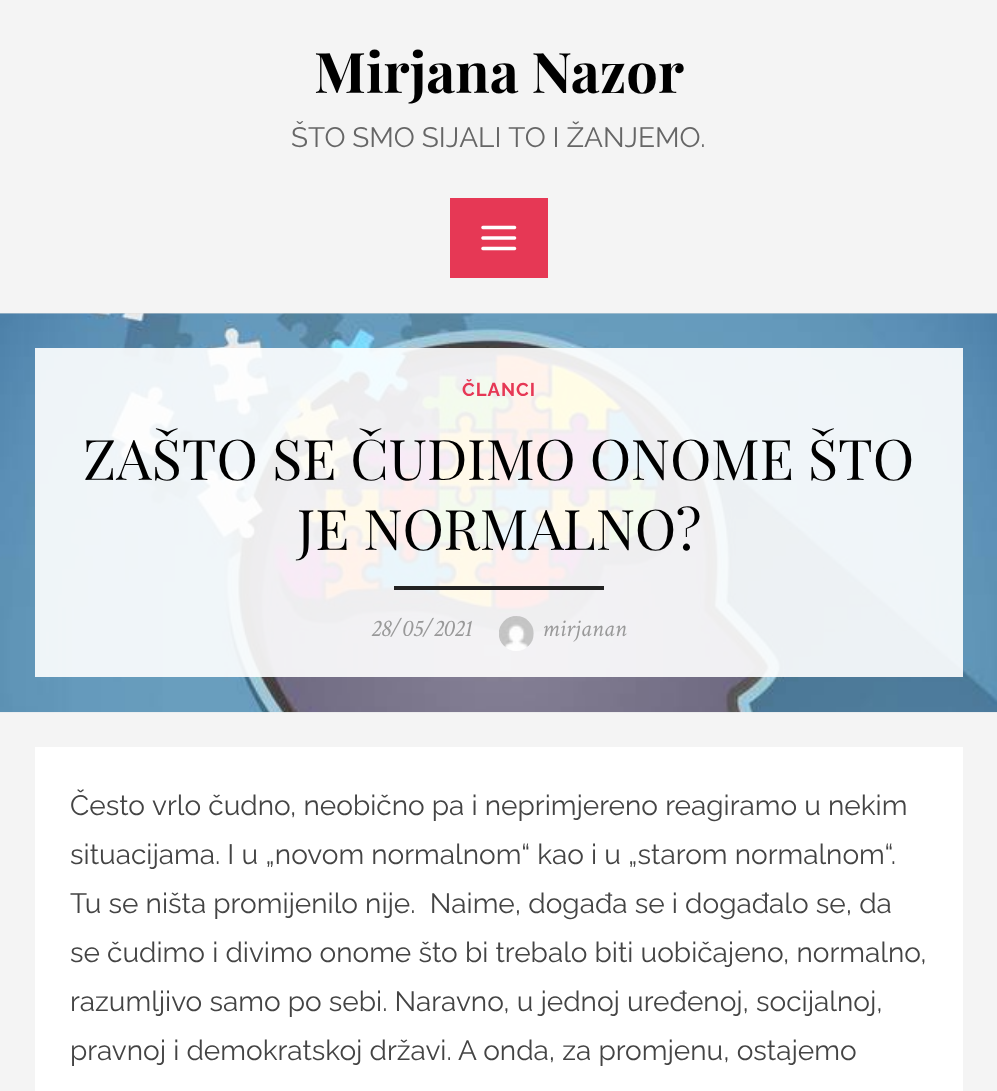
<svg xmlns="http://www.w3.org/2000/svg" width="997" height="1091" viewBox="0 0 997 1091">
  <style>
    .t1 { font: bold 56px Playfair Display; fill: #000; }
    .t2 { font: 28px Raleway; fill: #666; }
    .t3 { font: bold 18.5px Raleway; letter-spacing: 1px; fill: #e63855; }
    .t4 { font: 56px Playfair Display; fill: #000; }
    .t5 { font: italic 24.5px Crimson Text; fill: #999; }
    .t6 { font: 28px Raleway; fill: #444; }
  </style>
  <rect width="100%" height="100%" fill="#f4f4f4"/>
  <text x="314" y="93" class="t1">Mirjana Nazor</text>
  <text x="291" y="147" word-spacing="-0.25" class="t2">ŠTO SMO SIJALI TO I ŽANJEMO.</text>
  <rect x="450" y="198" width="98" height="80" fill="#e63855"/>
  <image x="481" y="225" width="36" height="26" href="images/1.png"/>
  <rect x="0" y="313" width="997" height="1" fill="#e1e1e1"/>
  <image x="0" y="313" width="997" height="400" href="images/2.png"/>
  <rect x="35" y="348" width="928" height="329" fill="#ffffffe6"/>
  <text x="462" y="396" class="t3">ČLANCI</text>
  <text x="83" y="480" class="t4">ZAŠTO SE ČUDIMO ONOME ŠTO</text>
  <text x="297" y="550" class="t4">JE NORMALNO?</text>
  <rect x="394" y="586" width="210" height="4" fill="#222"/>
  <text x="371" y="636" class="t5">28/05/2021</text>
  <image x="499" y="616" width="35" height="35" href="images/3.png"/>
  <text x="542" y="636" class="t5">mirjanan</text>
  <rect x="35" y="747" width="928" height="344" fill="#fff"/>
  <text x="70" y="815" class="t6">Često vrlo čudno, neobično pa i neprimjereno reagiramo u nekim</text>
  <text x="70" y="864" class="t6">situacijama. I u „novom normalnom“ kao i u „starom normalnom“.</text>
  <text x="70" y="913" class="t6" xml:space="preserve">Tu se ništa promijenilo nije.  Naime, događa se i događalo se, da</text>
  <text x="70" y="962" class="t6">se čudimo i divimo onome što bi trebalo biti uobičajeno, normalno,</text>
  <text x="70" y="1011" class="t6">razumljivo samo po sebi. Naravno, u jednoj uređenoj, socijalnoj,</text>
  <text x="70" y="1060" class="t6">pravnoj i demokratskoj državi. A onda, za promjenu, ostajemo</text>
</svg>
